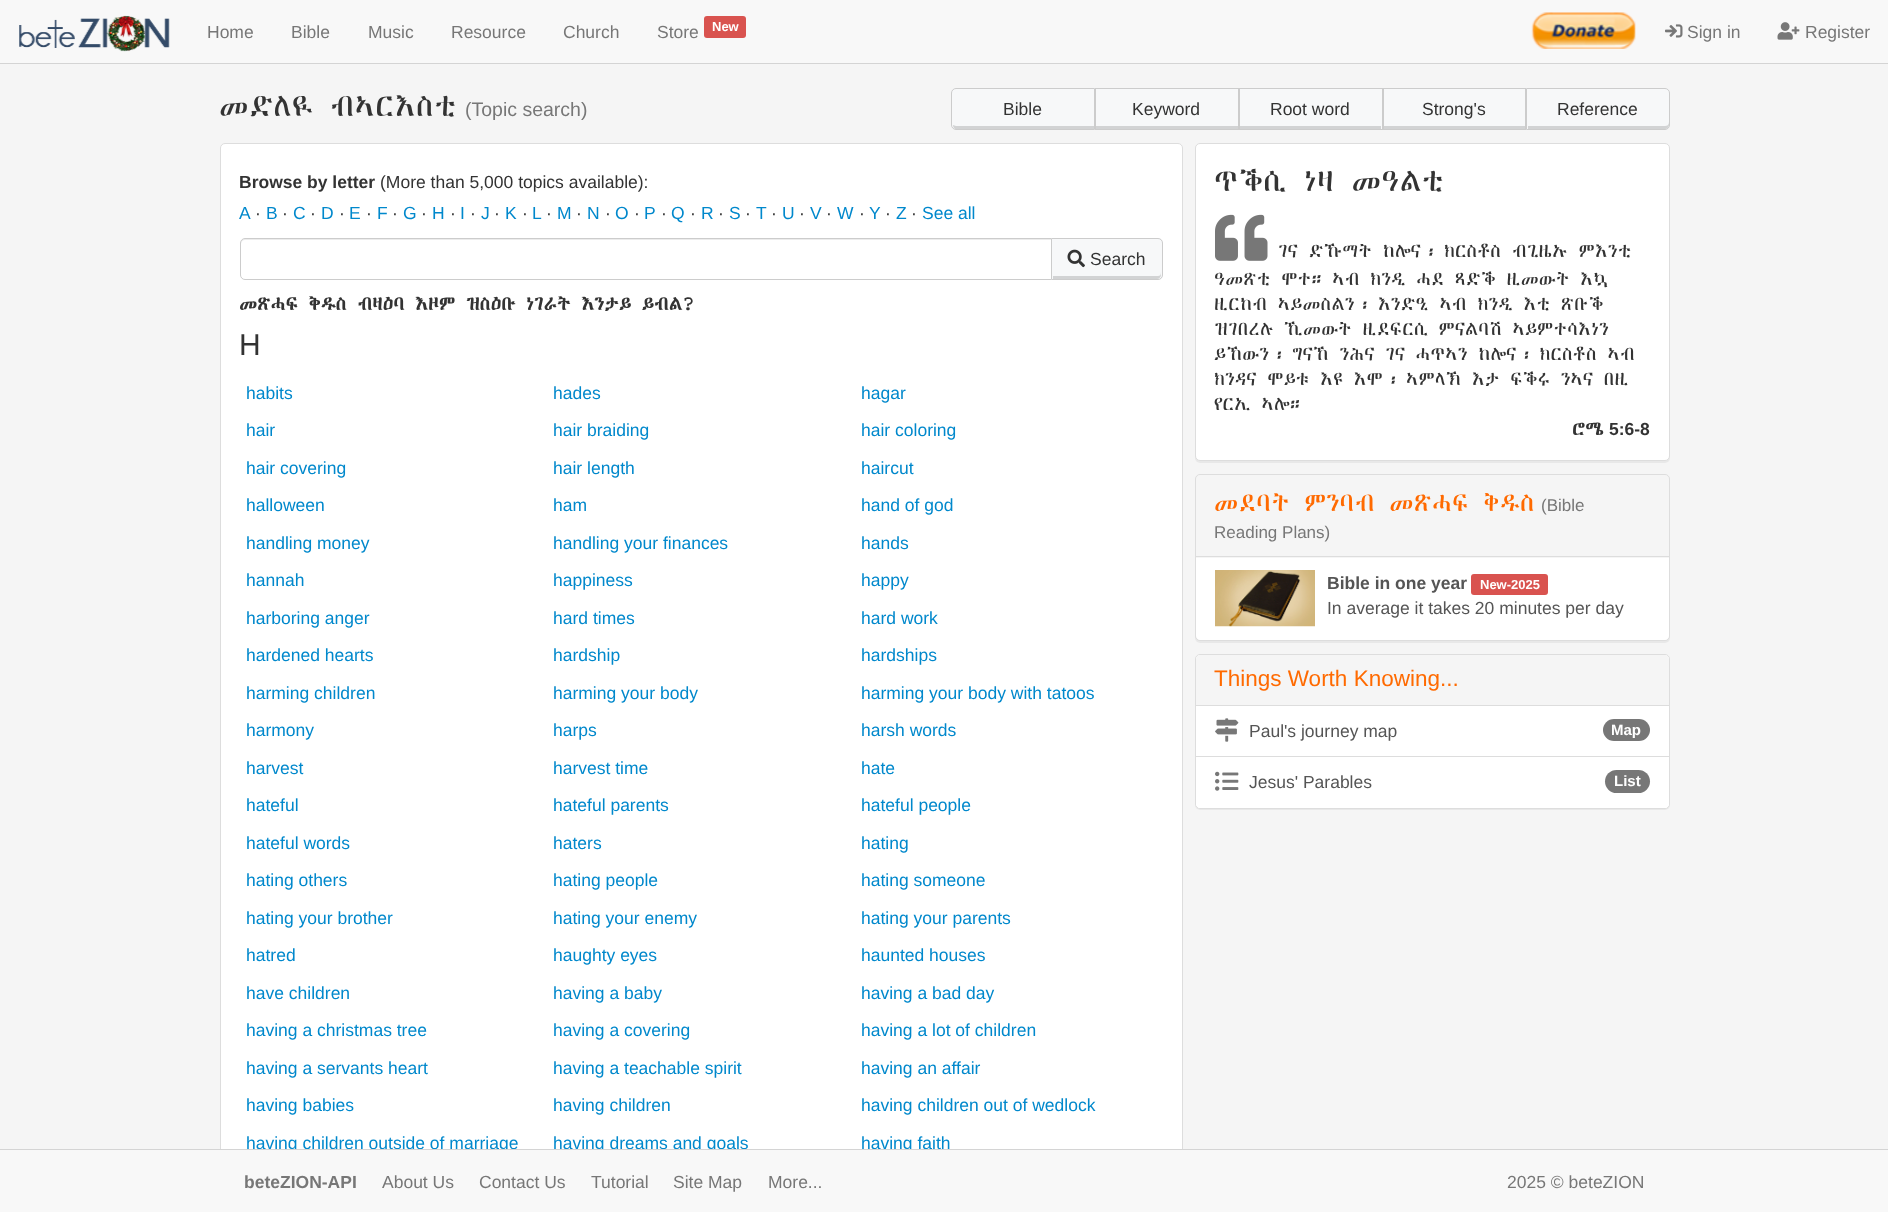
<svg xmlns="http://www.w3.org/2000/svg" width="1888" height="1212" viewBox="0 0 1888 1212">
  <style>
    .t1 { font: 17.5px Liberation Sans; fill: #777; }
    .t2 { font: bold 13px Liberation Sans; fill: #fff; }
    .t3 { font: 35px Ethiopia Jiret; fill: #333; }
    .t4 { font: 19.5px Liberation Sans; fill: #777; }
    .t5 { font: 17.5px Liberation Sans; fill: #333; }
    .t6 { font: bold 17.5px Liberation Sans; fill: #333; }
    .t7 { font: 17.5px Liberation Sans; fill: #08c; }
    .t8 { font: bold 21.25px Ethiopia Jiret; fill: #333; }
    .t9 { font: 30px Liberation Sans; fill: #333; }
    .t10 { font: 21.25px Ethiopia Jiret; fill: #333; }
    .t11 { font: 28.75px Ethiopia Jiret; fill: #ff6a00; }
    .t12 { font: 17px Liberation Sans; fill: #777; }
    .t13 { font: bold 17.5px Liberation Sans; fill: #555; }
    .t14 { font: 17.5px Liberation Sans; fill: #555; }
    .t15 { font: 22.5px Liberation Sans; fill: #ff6a00; }
    .t16 { font: bold 15px Liberation Sans; fill: #fff; }
    .t17 { font: bold 17.5px Liberation Sans; fill: #777; }
  </style>
  <rect width="100%" height="100%" fill="#f5f5f5"/>
  <rect x="0" y="0" width="1888" height="63" fill="#f8f8f8"/>
  <rect x="0" y="63" width="1888" height="1" fill="#d4d4d4"/>
  <image x="19" y="15" width="151" height="37" href="images/1.png"/>
  <text x="207" y="38" class="t1">Home</text>
  <text x="291" y="38" class="t1">Bible</text>
  <text x="368" y="38" class="t1">Music</text>
  <text x="451" y="38" class="t1">Resource</text>
  <text x="563" y="38" class="t1">Church</text>
  <text x="657" y="38" class="t1">Store</text>
  <rect x="704" y="16" width="42" height="22" rx="3" fill="#d9534f"/>
  <text x="712" y="31" class="t2">New</text>
  <image x="1531" y="12" width="105" height="37" href="images/2.png"/>
  <image x="1665" y="24" width="18" height="14" href="images/3.png"/>
  <text x="1687" y="38" class="t1">Sign in</text>
  <image x="1777" y="22" width="23" height="18" href="images/4.png"/>
  <text x="1805" y="38" class="t1">Register</text>
  <text x="219" y="116" class="t3">መድለዪ ብኣርእስቲ</text>
  <text x="465" y="116" class="t4">(Topic search)</text>
  <path d="M956 88H1095V130H956C953 130 951 128 951 125V93C951 90 953 88 956 88Z" fill="#f7f8f9"/>
  <path d="M953 125C953 127 954 128 955 129H1094V126H956Z" fill="#d2d3d4"/>
  <path d="M956 88.5H1094.5V129.5H956C953.5 129.5 951.5 127.5 951.5 125V93C951.5 90.5 953.5 88.5 956 88.5Z" fill="none" stroke="#ccc"/>
  <text x="1003" y="115" class="t5">Bible</text>
  <rect x="1096" y="89" width="142" height="37" fill="#f7f8f9"/>
  <rect x="1096" y="126" width="142" height="3" fill="#d2d3d4"/>
  <rect x="1095.5" y="88.5" width="143" height="41" fill="none" stroke="#ccc"/>
  <text x="1132" y="115" class="t5">Keyword</text>
  <rect x="1240" y="89" width="142" height="40" fill="#f7f8f9"/>
  <rect x="1240" y="126" width="141" height="3" fill="#d2d3d4"/>
  <rect x="1239.5" y="88.5" width="143" height="41" fill="none" stroke="#ccc"/>
  <text x="1270" y="115" class="t5">Root word</text>
  <rect x="1384" y="89" width="141" height="37" fill="#f7f8f9"/>
  <rect x="1384" y="126" width="141" height="3" fill="#d2d3d4"/>
  <rect x="1383.5" y="88.5" width="142" height="41" fill="none" stroke="#ccc"/>
  <text x="1422" y="115" class="t5">Strong's</text>
  <path d="M1526 88H1665C1668 88 1670 90 1670 93V125C1670 128 1668 130 1665 130H1526Z" fill="#f7f8f9"/>
  <path d="M1528 126V129H1665C1667 129 1669 127 1669 125V122C1669 125 1667 126 1665 126Z" fill="#d2d3d4"/>
  <path d="M1526.5 88.5H1665C1667.5 88.5 1669.5 90.5 1669.5 93V125C1669.5 127.5 1667.5 129.5 1665 129.5H1526.5Z" fill="none" stroke="#ccc"/>
  <text x="1557" y="115" class="t5">Reference</text>
  <rect x="220.5" y="143.5" width="962" height="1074" rx="4.5" fill="#fff" stroke="#ddd"/>
  <text x="239" y="188" class="t6">Browse by letter</text>
  <text x="380" y="188" class="t5">(More than 5,000 topics available):</text>
  <text x="239" y="219" class="t7">A</text>
  <text x="255" y="219" class="t5">·</text>
  <text x="266" y="219" class="t7">B</text>
  <text x="282" y="219" class="t5">·</text>
  <text x="293" y="219" class="t7">C</text>
  <text x="310" y="219" class="t5">·</text>
  <text x="321" y="219" class="t7">D</text>
  <text x="339" y="219" class="t5">·</text>
  <text x="349" y="219" class="t7">E</text>
  <text x="366" y="219" class="t5">·</text>
  <text x="377" y="219" class="t7">F</text>
  <text x="392" y="219" class="t5">·</text>
  <text x="403" y="219" class="t7">G</text>
  <text x="421" y="219" class="t5">·</text>
  <text x="432" y="219" class="t7">H</text>
  <text x="450" y="219" class="t5">·</text>
  <text x="460" y="219" class="t7">I</text>
  <text x="470" y="219" class="t5">·</text>
  <text x="481" y="219" class="t7">J</text>
  <text x="494" y="219" class="t5">·</text>
  <text x="505" y="219" class="t7">K</text>
  <text x="522" y="219" class="t5">·</text>
  <text x="532" y="219" class="t7">L</text>
  <text x="546" y="219" class="t5">·</text>
  <text x="557" y="219" class="t7">M</text>
  <text x="576" y="219" class="t5">·</text>
  <text x="587" y="219" class="t7">N</text>
  <text x="605" y="219" class="t5">·</text>
  <text x="615" y="219" class="t7">O</text>
  <text x="634" y="219" class="t5">·</text>
  <text x="644" y="219" class="t7">P</text>
  <text x="661" y="219" class="t5">·</text>
  <text x="671" y="219" class="t7">Q</text>
  <text x="690" y="219" class="t5">·</text>
  <text x="701" y="219" class="t7">R</text>
  <text x="718" y="219" class="t5">·</text>
  <text x="729" y="219" class="t7">S</text>
  <text x="745" y="219" class="t5">·</text>
  <text x="756" y="219" class="t7">T</text>
  <text x="771" y="219" class="t5">·</text>
  <text x="782" y="219" class="t7">U</text>
  <text x="799" y="219" class="t5">·</text>
  <text x="810" y="219" class="t7">V</text>
  <text x="826" y="219" class="t5">·</text>
  <text x="837" y="219" class="t7">W</text>
  <text x="859" y="219" class="t5">·</text>
  <text x="869" y="219" class="t7">Y</text>
  <text x="885" y="219" class="t5">·</text>
  <text x="896" y="219" class="t7">Z</text>
  <text x="911" y="219" class="t5">·</text>
  <text x="922" y="219" class="t7">See all</text>
  <path d="M245 240H1051V239H245C242 239 241 241 241 244C241 242 243 240 245 240Z" fill="#ececec"/>
  <path d="M245 238.5H1052.5V279.5H245C242.5 279.5 240.5 277.5 240.5 275V243C240.5 240.5 242.5 238.5 245 238.5Z" fill="none" stroke="#ccc"/>
  <path d="M1051 238H1158C1161 238 1163 240 1163 243V275C1163 278 1161 280 1158 280H1051Z" fill="#f7f8f9"/>
  <path d="M1053 276V279H1157C1159 279 1161 277 1161 275V272C1161 275 1160 276 1158 276Z" fill="#d2d3d4"/>
  <path d="M1051.5 238.5H1158C1160.5 238.5 1162.5 240.5 1162.5 243V275C1162.5 277.5 1160.5 279.5 1158 279.5H1051.5Z" fill="none" stroke="#ccc"/>
  <image x="1067" y="249" width="18" height="19" href="images/5.png"/>
  <text x="1090" y="265" class="t5">Search</text>
  <text x="239" y="310" class="t8">መጽሓፍ ቅዱስ ብዛዕባ እዞም ዝስዕቡ ነገራት እንታይ ይብል?</text>
  <text x="239" y="355" class="t9">H</text>
  <text x="246" y="399" class="t7">habits</text>
  <text x="553" y="399" class="t7">hades</text>
  <text x="861" y="399" class="t7">hagar</text>
  <text x="246" y="436" class="t7">hair</text>
  <text x="553" y="436" class="t7">hair braiding</text>
  <text x="861" y="436" class="t7">hair coloring</text>
  <text x="246" y="474" class="t7">hair covering</text>
  <text x="553" y="474" class="t7">hair length</text>
  <text x="861" y="474" class="t7">haircut</text>
  <text x="246" y="511" class="t7">halloween</text>
  <text x="553" y="511" class="t7">ham</text>
  <text x="861" y="511" class="t7">hand of god</text>
  <text x="246" y="549" class="t7">handling money</text>
  <text x="553" y="549" class="t7">handling your finances</text>
  <text x="861" y="549" class="t7">hands</text>
  <text x="246" y="586" class="t7">hannah</text>
  <text x="553" y="586" class="t7">happiness</text>
  <text x="861" y="586" class="t7">happy</text>
  <text x="246" y="624" class="t7">harboring anger</text>
  <text x="553" y="624" class="t7">hard times</text>
  <text x="861" y="624" class="t7">hard work</text>
  <text x="246" y="661" class="t7">hardened hearts</text>
  <text x="553" y="661" class="t7">hardship</text>
  <text x="861" y="661" class="t7">hardships</text>
  <text x="246" y="699" class="t7">harming children</text>
  <text x="553" y="699" class="t7">harming your body</text>
  <text x="861" y="699" class="t7">harming your body with tatoos</text>
  <text x="246" y="736" class="t7">harmony</text>
  <text x="553" y="736" class="t7">harps</text>
  <text x="861" y="736" class="t7">harsh words</text>
  <text x="246" y="774" class="t7">harvest</text>
  <text x="553" y="774" class="t7">harvest time</text>
  <text x="861" y="774" class="t7">hate</text>
  <text x="246" y="811" class="t7">hateful</text>
  <text x="553" y="811" class="t7">hateful parents</text>
  <text x="861" y="811" class="t7">hateful people</text>
  <text x="246" y="849" class="t7">hateful words</text>
  <text x="553" y="849" class="t7">haters</text>
  <text x="861" y="849" class="t7">hating</text>
  <text x="246" y="886" class="t7">hating others</text>
  <text x="553" y="886" class="t7">hating people</text>
  <text x="861" y="886" class="t7">hating someone</text>
  <text x="246" y="924" class="t7">hating your brother</text>
  <text x="553" y="924" class="t7">hating your enemy</text>
  <text x="861" y="924" class="t7">hating your parents</text>
  <text x="246" y="961" class="t7">hatred</text>
  <text x="553" y="961" class="t7">haughty eyes</text>
  <text x="861" y="961" class="t7">haunted houses</text>
  <text x="246" y="999" class="t7">have children</text>
  <text x="553" y="999" class="t7">having a baby</text>
  <text x="861" y="999" class="t7">having a bad day</text>
  <text x="246" y="1036" class="t7">having a christmas tree</text>
  <text x="553" y="1036" class="t7">having a covering</text>
  <text x="861" y="1036" class="t7">having a lot of children</text>
  <text x="246" y="1074" class="t7">having a servants heart</text>
  <text x="553" y="1074" class="t7">having a teachable spirit</text>
  <text x="861" y="1074" class="t7">having an affair</text>
  <text x="246" y="1111" class="t7">having babies</text>
  <text x="553" y="1111" class="t7">having children</text>
  <text x="861" y="1111" class="t7">having children out of wedlock</text>
  <text x="246" y="1149" class="t7">having children outside of marriage</text>
  <text x="553" y="1149" class="t7">having dreams and goals</text>
  <text x="861" y="1149" class="t7">having faith</text>
  <rect x="1195" y="144" width="475" height="319" rx="5" fill="#0000000d" filter="blur(0.5px)"/>
  <rect x="1195.5" y="143.5" width="474" height="317" rx="4.5" fill="#fff" stroke="#ddd"/>
  <text x="1214" y="191" class="t3">ጥቕሲ ነዛ መዓልቲ</text>
  <image x="1215" y="214" width="53" height="47" href="images/6.png"/>
  <text x="1278" y="257" class="t10">ገና ድኹማት ከሎና፡ ክርስቶስ ብጊዜኡ ምእንቲ</text>
  <text x="1214" y="285" class="t10">ዓመጽቲ ሞተ። ኣብ ክንዲ ሓደ ጻድቕ ዚመውት እኳ</text>
  <text x="1214" y="310" class="t10">ዚርከብ ኣይመስልን፡ እንድዒ ኣብ ክንዲ እቲ ጽቡቕ</text>
  <text x="1214" y="335" class="t10">ዝገበረሉ ኺመውት ዚደፍርሲ ምናልባሽ ኣይምተሳእነን</text>
  <text x="1214" y="360" class="t10">ይኸውን፡ ግናኸ ንሕና ገና ሓጥኣን ከሎና፡ ክርስቶስ ኣብ</text>
  <text x="1214" y="385" class="t10">ክንዳና ሞይቱ እዩ እሞ፡ ኣምላኽ እታ ፍቕሩ ንኣና በዚ</text>
  <text x="1214" y="410" class="t10">የርኢ ኣሎ።</text>
  <text x="1572" y="435" class="t8">ሮሜ</text>
  <text x="1609" y="435" class="t6">5:6-8</text>
  <rect x="1195" y="475" width="475" height="168" rx="5" fill="#0000000d" filter="blur(0.5px)"/>
  <rect x="1195.5" y="474.5" width="474" height="166" rx="4.5" fill="none" stroke="#ddd"/>
  <path d="M1200 475H1665C1667 475 1669 477 1669 479V558H1196V479C1196 477 1198 475 1200 475Z" fill="#f5f5f5"/>
  <rect x="1196" y="556" width="473" height="1" fill="#ddd"/>
  <text x="1214" y="511" class="t11">መደባት ምንባብ መጽሓፍ ቅዱስ</text>
  <text x="1541" y="511" class="t12">(Bible</text>
  <text x="1214" y="538" class="t12">Reading Plans)</text>
  <path d="M1196 558H1669V636C1669 638 1667 640 1665 640H1200C1198 640 1196 638 1196 636Z" fill="#fff"/>
  <image x="1215" y="570" width="100" height="57" href="images/7.png"/>
  <text x="1327" y="589" class="t13">Bible in one year</text>
  <rect x="1471" y="574" width="77" height="21" rx="3" fill="#d9534f"/>
  <text x="1480" y="589" class="t2">New-2025</text>
  <text x="1327" y="614" class="t14">In average it takes 20 minutes per day</text>
  <rect x="1195" y="655" width="475" height="155" rx="5" fill="#0000000d" filter="blur(0.5px)"/>
  <rect x="1195.5" y="654.5" width="474" height="154" rx="4.5" fill="#fff" stroke="#ddd"/>
  <path d="M1200 655H1665C1667 655 1669 657 1669 659V706H1196V659C1196 657 1198 655 1200 655Z" fill="#f5f5f5"/>
  <rect x="1196" y="705" width="473" height="1" fill="#ddd"/>
  <text x="1214" y="686" class="t15">Things Worth Knowing...</text>
  <image x="1215" y="718" width="24" height="24" href="images/8.png"/>
  <text x="1249" y="737" class="t14">Paul's journey map</text>
  <rect x="1603" y="719" width="47" height="22" rx="11" fill="#777"/>
  <text x="1611" y="735" class="t16">Map</text>
  <path d="M1196 756H1669V804C1669 806 1667 808 1665 808H1200C1198 808 1196 806 1196 804Z" fill="#fff"/>
  <rect x="1196" y="756" width="473" height="1" fill="#ddd"/>
  <image x="1215" y="771" width="24" height="20" href="images/9.png"/>
  <text x="1249" y="788" class="t14">Jesus' Parables</text>
  <rect x="1605" y="770" width="45" height="23" rx="11.5" fill="#777"/>
  <text x="1614" y="786" class="t16">List</text>
  <rect x="0" y="1150" width="1888" height="62" fill="#f8f8f8"/>
  <rect x="0" y="1149" width="1888" height="1" fill="#d4d4d4"/>
  <text x="244" y="1188" class="t17">beteZION-API</text>
  <text x="382" y="1188" class="t1">About Us</text>
  <text x="479" y="1188" class="t1">Contact Us</text>
  <text x="591" y="1188" class="t1">Tutorial</text>
  <text x="673" y="1188" class="t1">Site Map</text>
  <text x="768" y="1188" class="t1">More...</text>
  <text x="1507" y="1188" class="t1">2025 © beteZION</text>
</svg>
